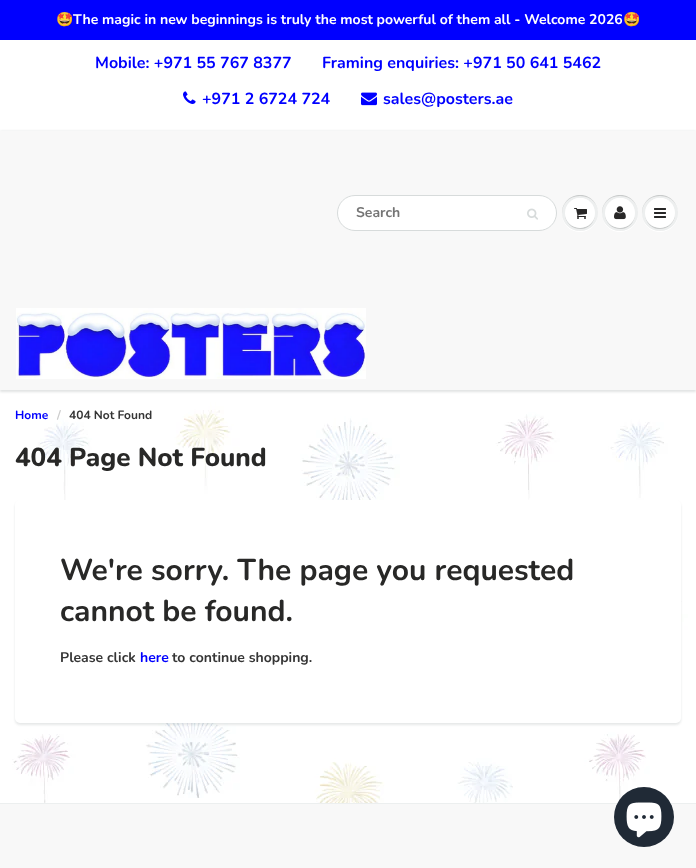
<svg xmlns="http://www.w3.org/2000/svg" width="696" height="868" viewBox="0 0 696 868">
  <style>
    .t1 { font: bold 14px Noto Color Emoji; fill: #fff; }
    .t2 { font: bold 14px Nunito; fill: #fff; }
    .t3 { font: bold 16px Nunito; fill: #00f; }
    .t4 { font: bold 14px Nunito; fill: #757575; }
    .t5 { font: bold 12px Nunito; fill: #00f; }
    .t6 { font: bold 12px Nunito; fill: #ccc; }
    .t7 { font: bold 12px Nunito; fill: #353535; }
    .t8 { font: 800 26px Nunito; fill: #282827; }
    .t9 { font: bold 30px Nunito; fill: #282827; }
    .t10 { font: bold 14px Nunito; fill: #353535; }
    .t11 { font: bold 14px Nunito; fill: #00f; }
  </style>
  <rect width="100%" height="100%" fill="#fff"/>
  <rect x="0" y="0" width="696" height="40" fill="#00f"/>
  <text x="56" y="24" class="t1">🤩</text>
  <text x="73" y="24" class="t2">The magic in new beginnings is truly the most powerful of them all - Welcome 2026</text>
  <text x="623" y="24" class="t1">🤩</text>
  <text x="95" y="68" class="t3">Mobile: +971 55 767 8377</text>
  <text x="322" y="68" class="t3">Framing enquiries: +971 50 641 5462</text>
  <image x="183" y="91" width="13" height="13" href="images/1.png"/>
  <text x="202" y="104" class="t3">+971 2 6724 724</text>
  <image x="361" y="92" width="16" height="14" href="images/2.png"/>
  <text x="383" y="104" class="t3">sales@posters.ae</text>
  <image x="0" y="390" width="696" height="413" href="images/8.png"/>
  <rect x="0" y="131" width="696" height="261" fill="#0b191c1f" filter="blur(1px)"/>
  <rect x="0" y="131" width="696" height="259" fill="#f8f8f8"/>
  <rect x="337.5" y="195.5" width="219" height="35" rx="17.5" fill="#fff" stroke="#d7dbdb"/>
  <text x="356" y="217" class="t4">Search</text>
  <image x="527" y="208" width="11" height="12" href="images/3.png"/>
  <path d="M562 213.5C561.5 231.5 585 239 595 224C597 221 598 217 598 213.5C597.5 223 590 231 580 231C570 231 562.5 223 562 213.5Z" fill="#fff"/>
  <circle cx="580" cy="213" r="18" fill="#edefef"/>
  <path d="M580 196C592 196 598 204.5 598 213.5C598 210 597 206 595 203C585 188 561.5 195.5 562 213.5C562 204.5 568 196 580 196Z" fill="#c9cbcb"/>
  <path d="M595 213.5C594.5 232.5 565.5 232.5 565 213.5C564.5 228.5 584 235 592.5 222.5C594 220 595 216.5 595 213.5Z" fill="#c9cbcb"/>
  <circle cx="580" cy="213" r="15" fill="#fff"/>
  <path d="M580 199C590 199 595 206 595 213.5C595 210.5 594 207 592.5 204.5C584 192 564.5 198.5 565 213.5C565 206 570 199 580 199Z" fill="#fff"/>
  <image x="574" y="208" width="13" height="11" href="images/4.png"/>
  <path d="M602 213.5C602 217 603 221 605 224C615 239 638.5 231.5 638 213.5C637.5 223 630 231 620 231C610 231 602.5 223 602 213.5Z" fill="#fff"/>
  <circle cx="620" cy="213" r="18" fill="#edefef"/>
  <path d="M620 196C632 196 638 204.5 638 213.5C638 210 637 206 635 203C625 188 601.5 195.5 602 213.5C602 204.5 608 196 620 196Z" fill="#c9cbcb"/>
  <path d="M635 213.5C634.5 232.5 605.5 232.5 605 213.5C604.5 228.5 624 235 632.5 222.5C634 220 635 216.5 635 213.5Z" fill="#c9cbcb"/>
  <circle cx="620" cy="213" r="15" fill="#fff"/>
  <path d="M620 199C630 199 635 206 635 213.5C635 210.5 634 207 632.5 204.5C624 192 604.5 198.5 605 213.5C605 206 610 199 620 199Z" fill="#fff"/>
  <image x="614" y="206" width="12" height="14" href="images/5.png"/>
  <path d="M642 213.5C642 217 643 221 645 224C655 239 678.5 231.5 678 213.5C677.5 223 670 231 660 231C650 231 642.5 223 642 213.5Z" fill="#fff"/>
  <circle cx="660" cy="213" r="18" fill="#edefef"/>
  <path d="M660 196C672 196 678 204.5 678 213.5C678 210 677 206 675 203C665 188 641.5 195.5 642 213.5C642 204.5 648 196 660 196Z" fill="#c9cbcb"/>
  <path d="M675 213.5C674.5 232.5 645.5 232.5 645 213.5C645 216.5 646 220 647.5 222.5C656 235 675.5 228.5 675 213.5Z" fill="#c9cbcb"/>
  <circle cx="660" cy="213" r="15" fill="#fff"/>
  <path d="M660 199C670 199 675 206 675 213.5C675 210.5 674 207 672.5 204.5C664 192 644.5 198.5 645 213.5C645 206 650 199 660 199Z" fill="#fff"/>
  <image x="654" y="208" width="12" height="10" href="images/6.png"/>
  <image x="16" y="308" width="350" height="71" href="images/7.png"/>
  <text x="15" y="419" class="t5">Home</text>
  <text x="57" y="419" class="t6">/</text>
  <text x="69" y="419" class="t7">404 Not Found</text>
  <text x="15" y="466" class="t8">404 Page Not Found</text>
  <rect x="15" y="502" width="666" height="223" rx="5" fill="#0b191c1a" filter="blur(1px)"/>
  <rect x="15" y="500" width="666" height="223" rx="5" fill="#fff"/>
  <text x="60" y="580" class="t9">We're sorry. The page you requested</text>
  <text x="60" y="621" class="t9">cannot be found.</text>
  <text x="60" y="662" class="t10">Please click</text>
  <text x="140" y="662" class="t11">here</text>
  <text x="172" y="662" class="t10">to continue shopping.</text>
  <rect x="0" y="804" width="696" height="64" fill="#f8f8f8"/>
  <rect x="0" y="803" width="696" height="1" fill="#ecefef"/>
  <circle cx="644" cy="817" r="30" fill="#202a36"/>
  <image x="626" y="802" width="36" height="36" href="images/9.png"/>
</svg>
